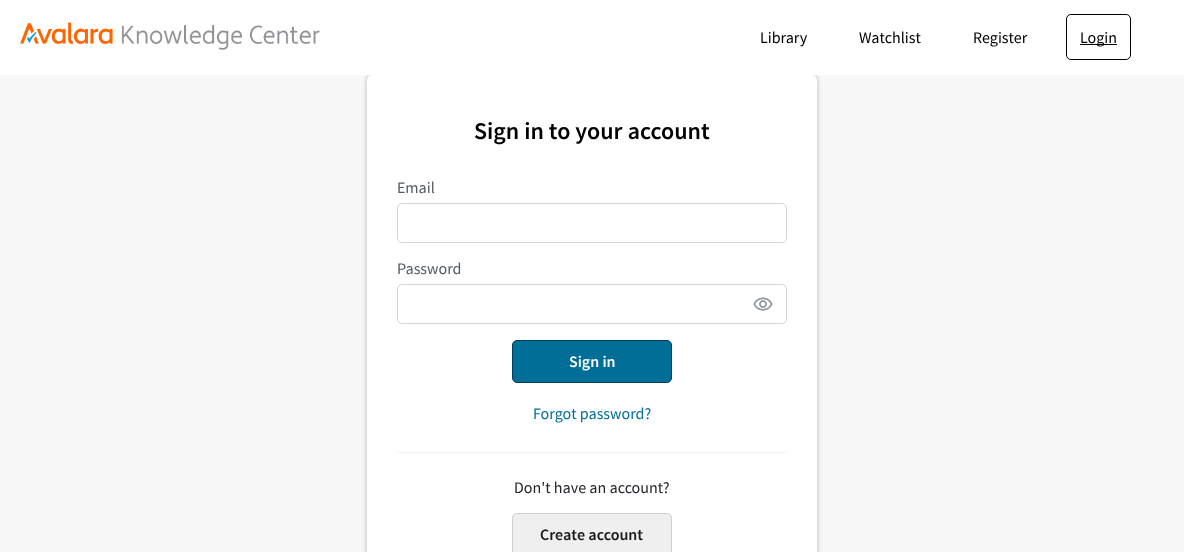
<svg xmlns="http://www.w3.org/2000/svg" width="1184" height="552" viewBox="0 0 1184 552">
  <style>
    .t1 { font: 16px Source Sans Pro; fill: #000; }
    .t2 { font: 600 24px Source Sans Pro; fill: #000; }
    .t3 { font: 16px Source Sans Pro; fill: #53595e; }
    .t4 { font: 600 16px Source Sans Pro; fill: #fff; }
    .t5 { font: 16px Source Sans Pro; fill: #006e96; }
    .t6 { font: 16px Source Sans Pro; fill: #212529; }
    .t7 { font: 600 16px Source Sans Pro; fill: #1a1a1a; }
  </style>
  <rect width="100%" height="100%" fill="#f7f7f7"/>
  <rect x="367" y="75" width="450" height="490" rx="5" fill="#00000045" filter="blur(2.5px)"/>
  <rect x="0" y="0" width="1184" height="75" fill="#fff"/>
  <image x="20" y="22" width="300" height="28" href="images/1.png"/>
  <text x="760" y="43" class="t1">Library</text>
  <text x="859" y="43" class="t1">Watchlist</text>
  <text x="973" y="43" class="t1">Register</text>
  <rect x="1066.5" y="14.5" width="64" height="45" rx="4.5" fill="none" stroke="#000"/>
  <rect x="1080" y="44" width="37" height="1" fill="#000"/>
  <text x="1080" y="43" class="t1">Login</text>
  <rect x="367" y="75" width="450" height="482" rx="5" fill="#fff"/>
  <text x="474" y="139" class="t2">Sign in to your account</text>
  <text x="397" y="193" class="t3">Email</text>
  <rect x="397.5" y="203.5" width="389" height="39" rx="4.5" fill="none" stroke="#d4d5d6"/>
  <text x="397" y="274" class="t3">Password</text>
  <rect x="397.5" y="284.5" width="389" height="39" rx="4.5" fill="none" stroke="#d4d5d6"/>
  <image x="753" y="297" width="20" height="14" href="images/2.png"/>
  <rect x="512.5" y="340.5" width="159" height="42" rx="4.5" fill="#006e96" stroke="#004159"/>
  <text x="569" y="367" class="t4">Sign in</text>
  <text x="533" y="419" class="t5">Forgot password?</text>
  <rect x="397" y="452" width="390" height="1" fill="#f2f2f2"/>
  <text x="514" y="493" class="t6">Don't have an account?</text>
  <rect x="512.5" y="513.5" width="159" height="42" rx="4.5" fill="#efefef" stroke="#cecece"/>
  <text x="540" y="540" class="t7">Create account</text>
</svg>
